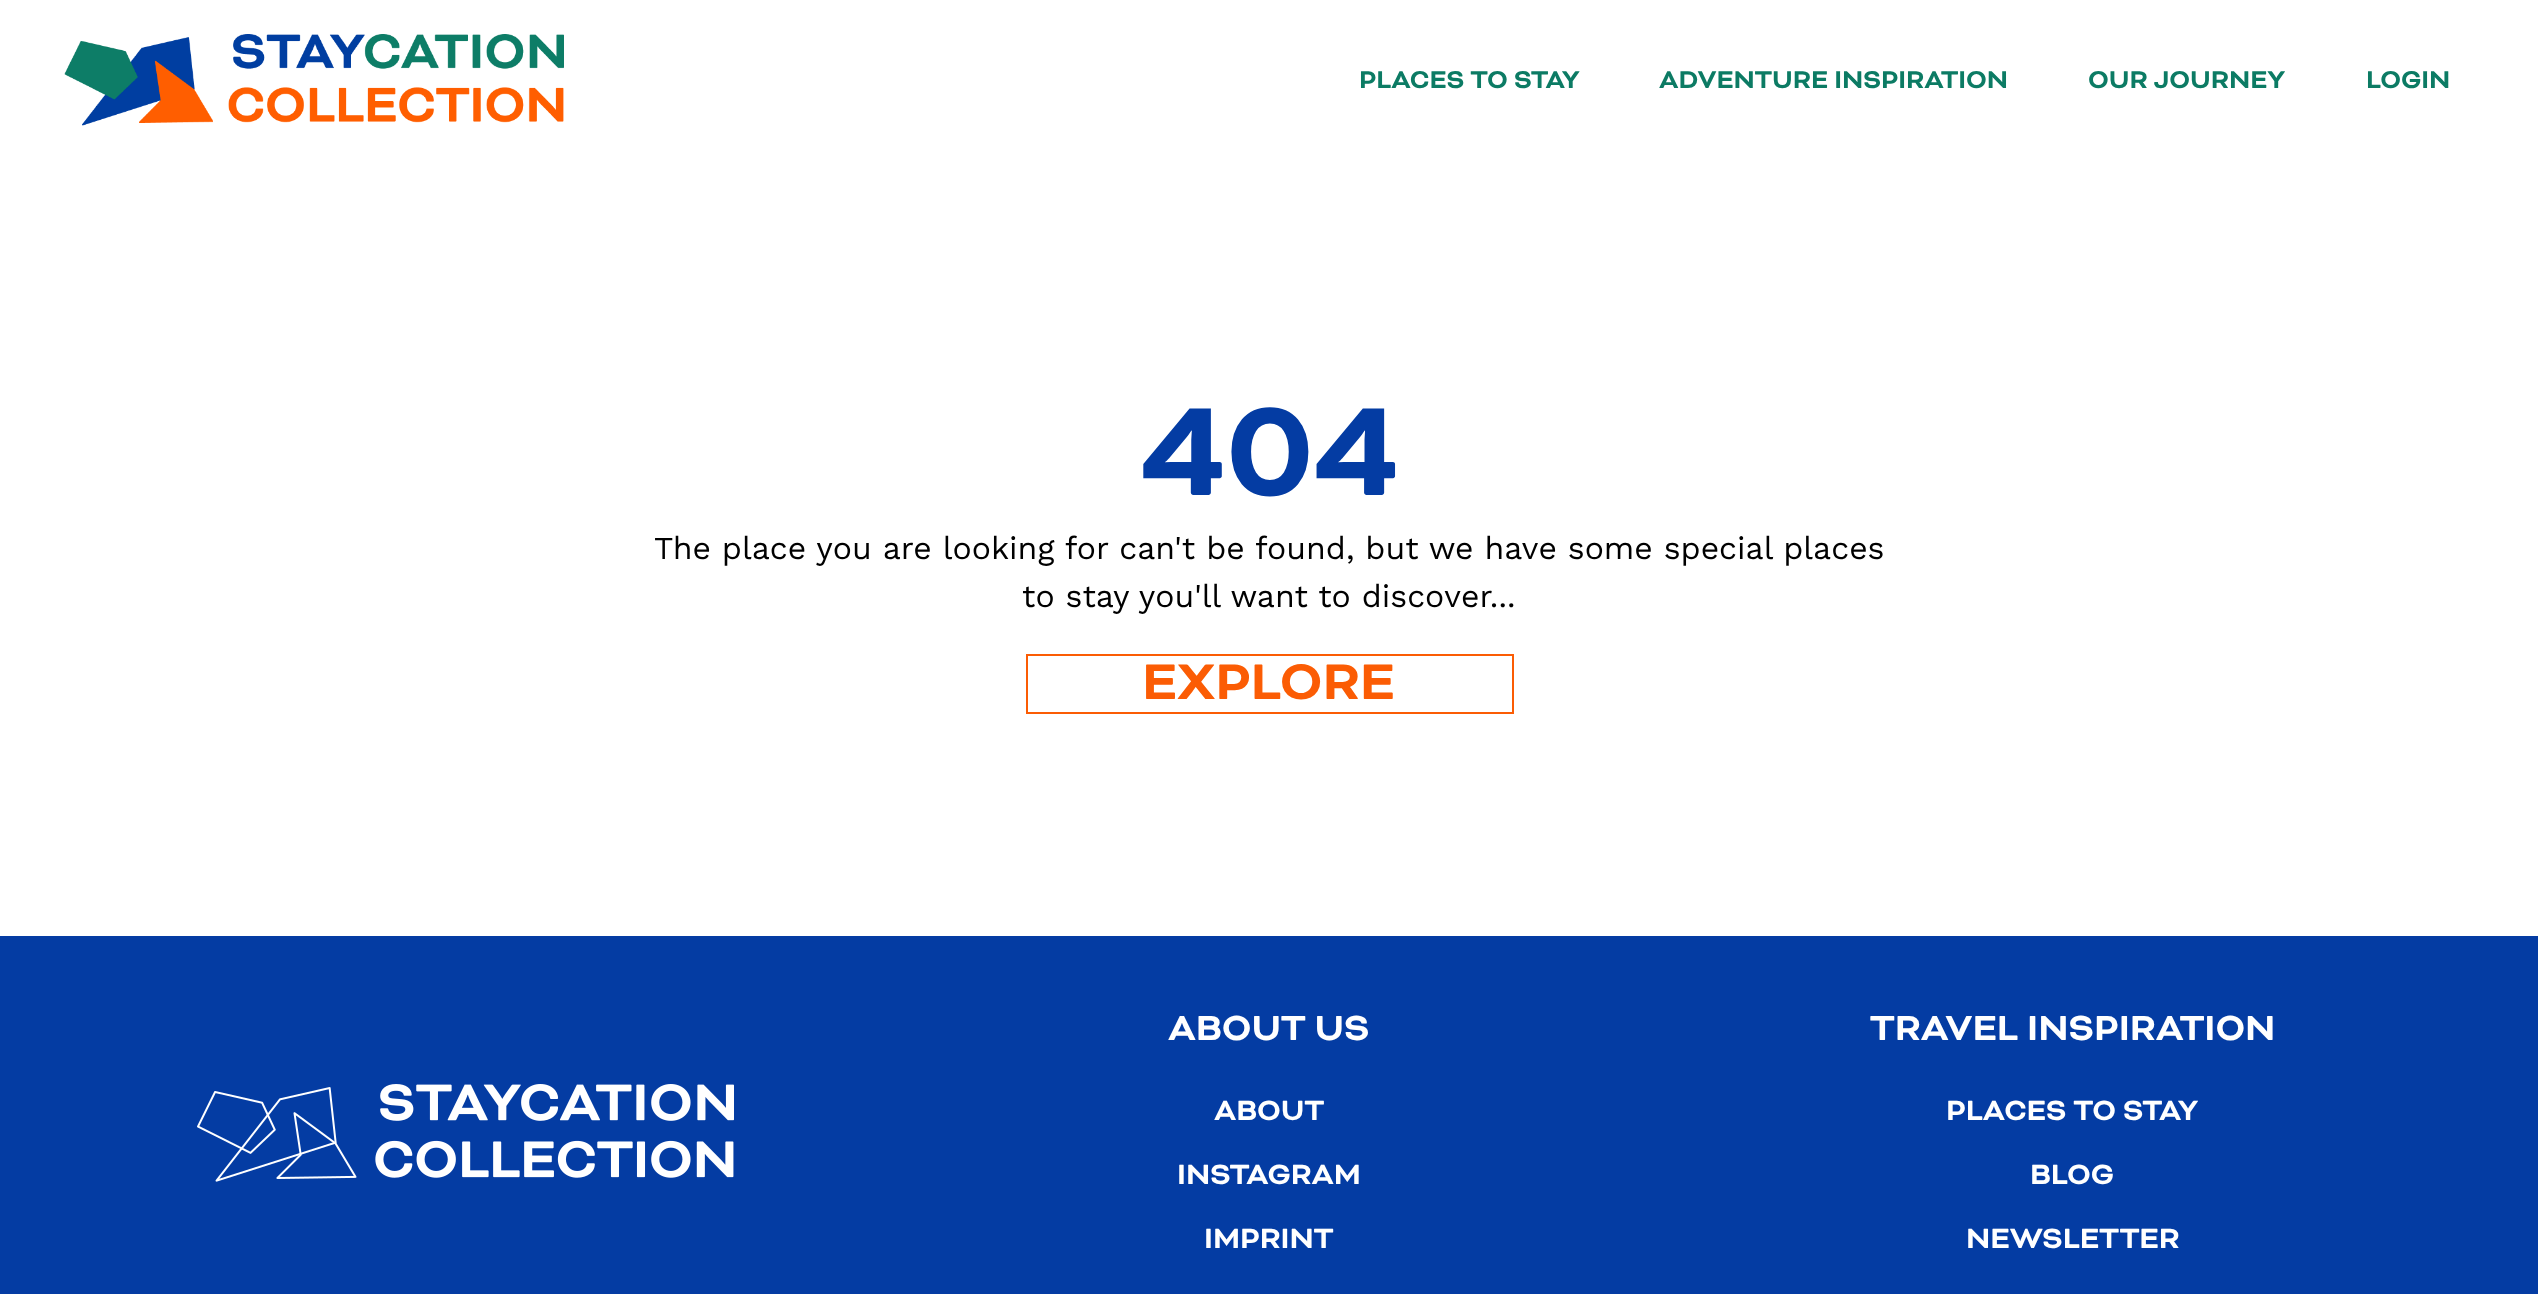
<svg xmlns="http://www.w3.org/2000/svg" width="2538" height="1294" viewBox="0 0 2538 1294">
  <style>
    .t1 { font: bold 28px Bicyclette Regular; fill: #0c7b64; }
    .t2 { font: bold 144px Bicyclette Regular; fill: #043ca3; }
    .t3 { font: 32px Work Sans; fill: #000; }
    .t4 { font: bold 57.5px Bicyclette Regular; fill: #fb5c04; }
    .t5 { font: bold 40px Bicyclette Regular; fill: #fff; }
    .t6 { font: bold 32px Bicyclette Regular; fill: #fff; }
  </style>
  <rect width="100%" height="100%" fill="#fff"/>
  <image x="64" y="34" width="500" height="92" href="images/1.png"/>
  <text x="1359" y="88" class="t1">PLACES TO STAY</text>
  <text x="1659" y="88" class="t1">ADVENTURE INSPIRATION</text>
  <text x="2088" y="88" class="t1">OUR JOURNEY</text>
  <text x="2366" y="88" class="t1">LOGIN</text>
  <text x="1140" y="495" class="t2">404</text>
  <text x="654" y="559" class="t3">The place you are looking for can't be found, but we have some special places</text>
  <text x="1022" y="607" class="t3">to stay you'll want to discover...</text>
  <rect x="1027" y="655" width="486" height="58" fill="none" stroke="#fb5c04" stroke-width="2"/>
  <text x="1142" y="699" class="t4">EXPLORE</text>
  <rect x="0" y="936" width="2538" height="358" fill="#043ca3"/>
  <image x="197" y="1084" width="537" height="98" href="images/2.png"/>
  <text x="1168" y="1040" class="t5">ABOUT US</text>
  <text x="1214" y="1120" class="t6">ABOUT</text>
  <text x="1177" y="1184" class="t6">INSTAGRAM</text>
  <text x="1204" y="1248" class="t6">IMPRINT</text>
  <text x="1870" y="1040" class="t5">TRAVEL INSPIRATION</text>
  <text x="1946" y="1120" class="t6">PLACES TO STAY</text>
  <text x="2030" y="1184" class="t6">BLOG</text>
  <text x="1966" y="1248" class="t6">NEWSLETTER</text>
</svg>
